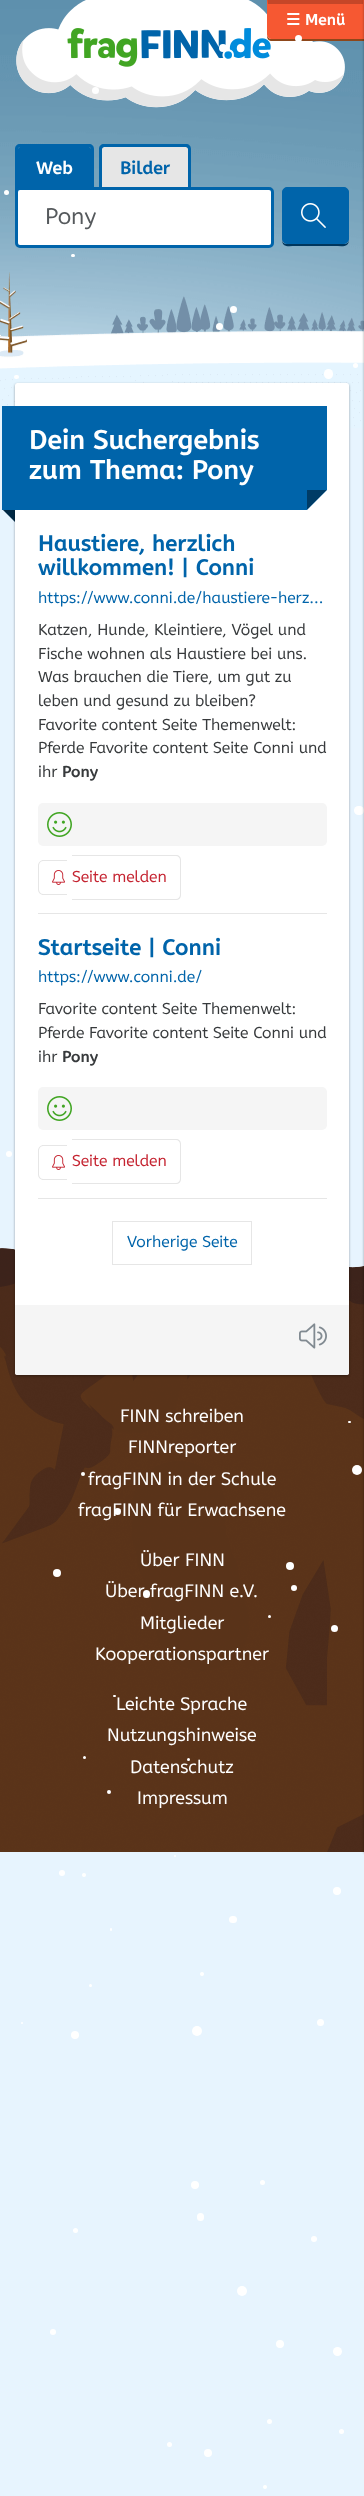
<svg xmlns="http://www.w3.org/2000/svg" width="364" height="2496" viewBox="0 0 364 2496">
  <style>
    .t1 { font: bold 15.75px DejaVu Sans; fill: #fff; }
    .t2 { font: bold 15.75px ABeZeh; fill: #fff; }
    .t3 { font: bold 18px ABeZeh; fill: #fff; }
    .t4 { font: bold 18px ABeZeh; fill: #0064aa; }
    .t5 { font: 22.5px ABeZeh; fill: #55595c; }
    .t6 { font: bold 27px ABeZeh; fill: #fff; }
    .t7 { font: bold 22.5px ABeZeh; fill: #0064aa; }
    .t8 { font: 15.75px ABeZeh; fill: #0064aa; }
    .t9 { font: 15.75px ABeZeh; fill: #373a3c; }
    .t10 { font: bold 15.75px ABeZeh; fill: #373a3c; }
    .t11 { font: 15.75px ABeZeh; fill: #c52431; }
    .t12 { font: 18px ABeZeh; fill: #fff; }
  </style>
  <rect width="100%" height="100%" fill="#e7f4fe"/>
  <image x="0" y="0" width="364" height="428" href="images/1.png"/>
  <image x="16" y="0" width="329" height="108" href="images/2.png"/>
  <path d="M267 34V36C267 39 269 41 272 41H364V39H272C269 39 267 37 267 34Z" fill="#8e471b"/>
  <path d="M267-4H364V39H272C269 39 267 37 267 34Z" fill="#f65832"/>
  <path d="M267-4L268 4H363L364-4Z" fill="#c54628"/>
  <text x="286" y="25" class="t1">☰</text>
  <text x="305" y="25" class="t2">Menü</text>
  <image x="0" y="1248" width="364" height="604" href="images/7.png"/>
  <rect x="354" y="806" width="10" height="9" rx="4.5" fill="#fff"/>
  <circle cx="357" cy="1470" r="5" fill="#fff"/>
  <rect x="364" y="1" width="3" height="1852" fill="#0000003d" filter="blur(1px)"/>
  <rect x="364" y="1" width="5" height="1852" fill="#0000001f" filter="blur(1.5px)"/>
  <path d="M20.5 147H88.5C90 147 91 148 91 149.5V192H18V149.5C18 148 19 147 20.5 147Z" fill="#0064aa"/>
  <path d="M20 144H89C92 144 94 146 94 149V192H15V149C15 146 17 144 20 144ZM20 147H89C90 147 91 148 91 149V192H18V149C18 148 19 147 20 147Z" fill="#0064aa" fill-rule="evenodd"/>
  <text x="36" y="174" class="t3">Web</text>
  <path d="M104.5 147H185.5C187 147 188 148 188 149.5V192H102V149.5C102 148 103 147 104.5 147Z" fill="#e6e6e6"/>
  <path d="M104 144H186C189 144 191 146 191 149V192H99V149C99 146 101 144 104 144ZM104 147H186C187 147 188 148 188 149V192H102V149C102 148 103 147 104 147Z" fill="#0064aa" fill-rule="evenodd"/>
  <text x="120" y="174" class="t4">Bilder</text>
  <rect x="16.5" y="188.5" width="256" height="58" rx="3.5" fill="#fff" stroke="#0064aa" stroke-width="3"/>
  <text x="45" y="224" class="t5">Pony</text>
  <path d="M282 239C282 248 288 246 296 246H334C343 246 349 248 349 239C349 242 347 244 344 244H287C284 244 282 242 282 239Z" fill="#00375e"/>
  <rect x="282.5" y="187.5" width="66" height="56" rx="4.5" fill="#0064aa" stroke="#0064aa"/>
  <image x="301" y="203" width="25" height="25" href="images/3.png"/>
  <path d="M15 509V522L2 509Z" fill="#002844"/>
  <circle cx="9" cy="1154" r="3" fill="#fff"/>
  <rect x="15" y="384" width="334" height="992" rx="2.5" fill="#0000003d" filter="blur(1px)"/>
  <rect x="14" y="375" width="5" height="4" rx="2" fill="#fff"/>
  <rect x="324" y="369" width="9" height="10" rx="4.5" fill="#fff"/>
  <rect x="15" y="384" width="334" height="992" rx="2.5" fill="#0000001f" filter="blur(1.5px)"/>
  <rect x="15" y="383" width="334" height="992" rx="2.5" fill="#fff"/>
  <rect x="2" y="406" width="325" height="104" fill="#0064aa"/>
  <text x="29" y="449" class="t6">Dein Suchergebnis</text>
  <text x="29" y="479" class="t6">zum Thema: Pony</text>
  <path d="M307 490H327L307 510Z" fill="#003c66"/>
  <path d="M327 510H307L327 490Z" fill="#fff"/>
  <rect x="38" y="913" width="289" height="1" fill="#e6e6e6"/>
  <text x="38" y="551" class="t7">Haustiere, herzlich</text>
  <text x="38" y="575" class="t7">willkommen! | Conni</text>
  <text x="38" y="603" class="t8">https://www.conni.de/haustiere-herz…</text>
  <text x="38" y="635" class="t9">Katzen, Hunde, Kleintiere, Vögel und</text>
  <text x="38" y="659" class="t9">Fische wohnen als Haustiere bei uns.</text>
  <text x="38" y="682" class="t9">Was brauchen die Tiere, um gut zu</text>
  <text x="38" y="706" class="t9">leben und gesund zu bleiben?</text>
  <text x="38" y="730" class="t9">Favorite content Seite Themenwelt:</text>
  <text x="38" y="753" class="t9">Pferde Favorite content Seite Conni und</text>
  <text x="38" y="777" class="t9">ihr</text>
  <text x="62" y="777" class="t10">Pony</text>
  <rect x="38" y="803" width="289" height="43" rx="5" fill="#f5f5f5"/>
  <image x="47" y="812" width="25" height="25" href="images/4.png"/>
  <path d="M43.5 860H67V895H43.5C40.5 895 38 892.5 38 889.5V865.5C38 862.5 40.5 860 43.5 860ZM43.5 861H67V894H43.5C41 894 39 892 39 889.5V865.5C39 863 41 861 43.5 861Z" fill="#e6e6e6" fill-rule="evenodd"/>
  <path d="M72 855H176C179 855 181 857 181 860V895C181 898 179 900 176 900H72ZM72 856H176C178 856 180 858 180 860V895C180 897 178 899 176 899H72Z" fill="#e6e6e6" fill-rule="evenodd"/>
  <image x="52" y="870" width="13" height="15" href="images/5.png"/>
  <text x="72" y="882" class="t11">Seite melden</text>
  <rect x="38" y="1198" width="289" height="1" fill="#e6e6e6"/>
  <text x="38" y="955" class="t7">Startseite | Conni</text>
  <text x="38" y="982" class="t8">https://www.conni.de/</text>
  <text x="38" y="1014" class="t9">Favorite content Seite Themenwelt:</text>
  <text x="38" y="1038" class="t9">Pferde Favorite content Seite Conni und</text>
  <text x="38" y="1062" class="t9">ihr</text>
  <text x="62" y="1062" class="t10">Pony</text>
  <rect x="38" y="1087" width="289" height="43" rx="5" fill="#f5f5f5"/>
  <image x="47" y="1096" width="25" height="25" href="images/4.png"/>
  <path d="M43.5 1145H67V1180H43.5C40.5 1180 38 1177.5 38 1174.5V1150.5C38 1147.5 40.5 1145 43.5 1145ZM43.5 1146H67V1179H43.5C41 1179 39 1177 39 1174.5V1150.5C39 1148 41 1146 43.5 1146Z" fill="#e6e6e6" fill-rule="evenodd"/>
  <path d="M72 1139H176C179 1139 181 1141 181 1144V1179C181 1182 179 1184 176 1184H72ZM72 1140H176C178 1140 180 1142 180 1144V1179C180 1181 178 1183 176 1183H72Z" fill="#e6e6e6" fill-rule="evenodd"/>
  <image x="52" y="1155" width="13" height="15" href="images/5.png"/>
  <text x="72" y="1166" class="t11">Seite melden</text>
  <rect x="112.5" y="1221.5" width="139" height="43" fill="none" stroke="#e6e6e6"/>
  <text x="127" y="1247" class="t8">Vorherige Seite</text>
  <path d="M15 1305H349V1372.5C349 1374 348 1375 346.5 1375H17.5C16 1375 15 1374 15 1372.5Z" fill="#f5f5f5"/>
  <image x="299" y="1323" width="28" height="26" href="images/6.png"/>
  <text x="120" y="1422" class="t12">FINN schreiben</text>
  <text x="128" y="1453" class="t12">FINNreporter</text>
  <text x="88" y="1485" class="t12">fragFINN in der Schule</text>
  <text x="78" y="1516" class="t12">fragFINN für Erwachsene</text>
  <text x="140" y="1566" class="t12">Über FINN</text>
  <text x="105" y="1597" class="t12">Über fragFINN e.V.</text>
  <text x="140" y="1629" class="t12">Mitglieder</text>
  <text x="95" y="1660" class="t12">Kooperationspartner</text>
  <text x="116" y="1710" class="t12">Leichte Sprache</text>
  <text x="107" y="1741" class="t12">Nutzungshinweise</text>
  <text x="130" y="1773" class="t12">Datenschutz</text>
  <text x="137" y="1804" class="t12">Impressum</text>
  <circle cx="298.5" cy="38.5" r="3.5" fill="#fff"/>
  <circle cx="223" cy="48" r="4" fill="#fff"/>
  <circle cx="95.5" cy="90.5" r="3.5" fill="#fff"/>
  <circle cx="6.5" cy="192.5" r="2.5" fill="#fff"/>
  <rect x="71" y="254" width="4" height="3" rx="1.5" fill="#fff"/>
  <circle cx="233.5" cy="309.5" r="3.5" fill="#fff"/>
  <circle cx="219.5" cy="326.5" r="3.5" fill="#fff"/>
  <circle cx="355.5" cy="365.5" r="2.5" fill="#fff"/>
  <rect x="348" y="1421" width="3" height="2" rx="1" fill="#fff"/>
  <circle cx="83" cy="1474" r="2" fill="#fff"/>
  <circle cx="117.5" cy="1511.5" r="3.5" fill="#fff"/>
  <circle cx="290" cy="1566" r="4" fill="#fff"/>
  <circle cx="57" cy="1573" r="4" fill="#fff"/>
  <circle cx="294" cy="1588" r="3" fill="#fff"/>
  <rect x="143" y="1590" width="7" height="8" rx="3.5" fill="#fff"/>
  <circle cx="269.5" cy="1616.5" r="1.5" fill="#fff"/>
  <circle cx="334.5" cy="1628.5" r="3.5" fill="#fff"/>
  <rect x="113" y="1695" width="3" height="2" rx="1" fill="#fff"/>
  <circle cx="84.5" cy="1757.5" r="1.5" fill="#fff"/>
  <circle cx="188.5" cy="1759.5" r="1.5" fill="#fff"/>
  <circle cx="109" cy="1792" r="2" fill="#fff"/>
  <circle cx="175" cy="1856" r="1" fill="#fff"/>
  <circle cx="62" cy="1873" r="3" fill="#fff"/>
  <circle cx="84" cy="1875" r="2" fill="#fff"/>
  <circle cx="337" cy="1891" r="4" fill="#fff"/>
  <rect x="229" y="1916" width="8" height="7" rx="3.5" fill="#fff"/>
  <rect x="110" y="1928" width="2" height="3" rx="1" fill="#fff"/>
  <circle cx="202" cy="1974" r="2" fill="#fff"/>
  <circle cx="90.5" cy="1985.5" r="1.5" fill="#fff"/>
  <circle cx="22" cy="2023" r="1" fill="#fff"/>
  <circle cx="320.5" cy="2022.5" r="3.5" fill="#fff"/>
  <circle cx="75" cy="2035" r="4" fill="#fff"/>
  <circle cx="197" cy="2031" r="5" fill="#fff"/>
  <circle cx="195" cy="2185" r="4" fill="#fff"/>
  <circle cx="262.5" cy="2182.5" r="2.5" fill="#fff"/>
  <rect x="197" y="2213" width="7" height="8" rx="3.5" fill="#fff"/>
  <circle cx="75.5" cy="2230.5" r="2.5" fill="#fff"/>
  <circle cx="314" cy="2239" r="3" fill="#fff"/>
  <circle cx="242" cy="2291" r="5" fill="#fff"/>
  <circle cx="53" cy="2332" r="3" fill="#fff"/>
  <circle cx="280" cy="2344" r="4" fill="#fff"/>
  <circle cx="337.5" cy="2351.5" r="4.5" fill="#fff"/>
  <circle cx="269.5" cy="2421.5" r="2.5" fill="#fff"/>
  <circle cx="341.5" cy="2431.5" r="2.5" fill="#fff"/>
  <circle cx="169.5" cy="2444.5" r="2.5" fill="#fff"/>
  <circle cx="208" cy="2453" r="4" fill="#fff"/>
  <circle cx="265" cy="2487" r="2" fill="#fff"/>
</svg>
